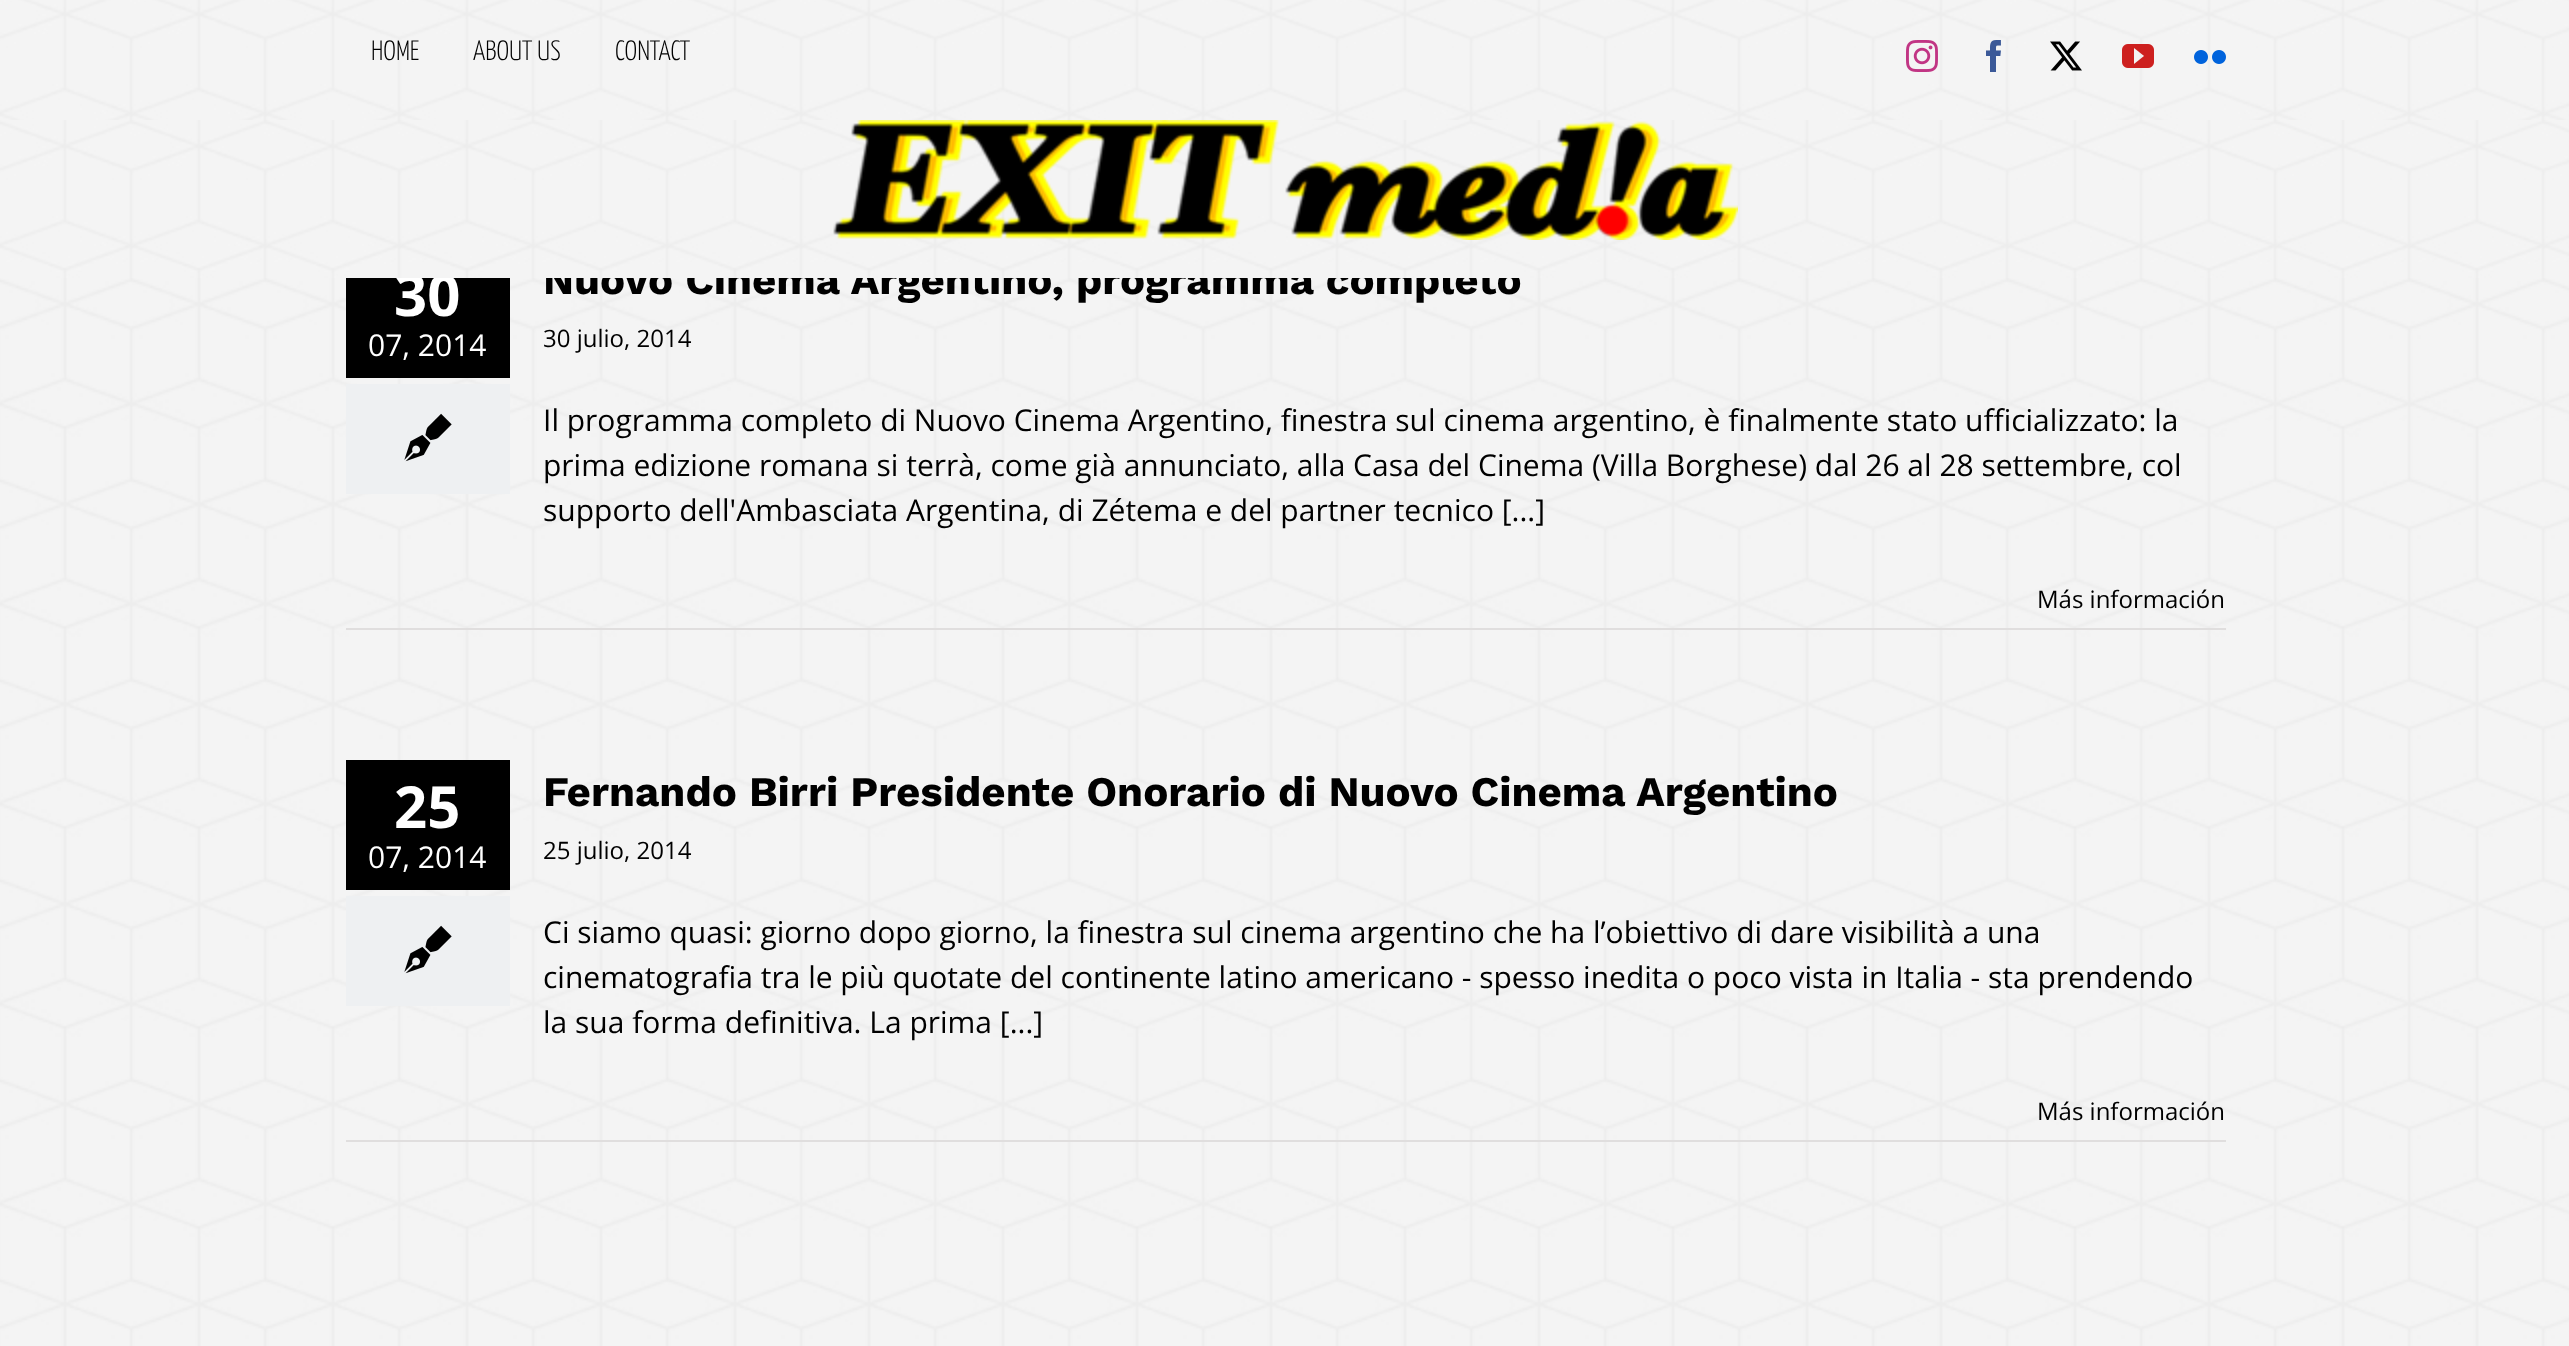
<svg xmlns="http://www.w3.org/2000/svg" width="2569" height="1346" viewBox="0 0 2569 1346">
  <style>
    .t1 { font: 200 28px Yanone Kaffeesatz; fill: #000; }
    .t2 { font: bold 58px Open Sans; fill: #fff; }
    .t3 { font: bold 42px Work Sans; fill: #000; }
    .t4 { font: 30px Open Sans; fill: #fff; }
    .t5 { font: 24px Open Sans; fill: #000; }
    .t6 { font: 30px Open Sans; fill: #000; }
  </style>
  <rect width="100%" height="100%" fill="#fff"/>
  <image x="0" y="0" width="2569" height="120" href="images/1.png"/>
  <text x="371" y="60" class="t1">HOME</text>
  <text x="473" y="60" class="t1">ABOUT US</text>
  <text x="615" y="60" class="t1">CONTACT</text>
  <image x="1906" y="40" width="32" height="32" href="images/2.png"/>
  <image x="1986" y="40" width="15" height="32" href="images/3.png"/>
  <image x="2050" y="41" width="32" height="30" href="images/4.png"/>
  <image x="2122" y="44" width="32" height="24" href="images/5.png"/>
  <image x="2194" y="50" width="32" height="14" href="images/6.png"/>
  <image x="0" y="278" width="2569" height="1068" href="images/9.png"/>
  <rect x="346" y="278" width="164" height="100" fill="#000"/>
  <text x="394" y="316" class="t2">30</text>
  <text x="543" y="294" class="t3">Nuovo Cinema Argentino, programma completo</text>
  <image x="0" y="120" width="2569" height="158" href="images/7.png"/>
  <image x="833" y="120" width="905" height="120" href="images/8.png"/>
  <text x="368" y="356" class="t4">07, 2014</text>
  <rect x="346" y="384" width="164" height="110" fill="#eef0f2"/>
  <image x="404" y="413" width="48" height="49" href="images/10.png"/>
  <text x="543" y="347" class="t5">30 julio, 2014</text>
  <text x="543" y="431" class="t6">Il programma completo di Nuovo Cinema Argentino, finestra sul cinema argentino, è finalmente stato ufficializzato: la</text>
  <text x="543" y="476" class="t6">prima edizione romana si terrà, come già annunciato, alla Casa del Cinema (Villa Borghese) dal 26 al 28 settembre, col</text>
  <text x="543" y="521" class="t6">supporto dell'Ambasciata Argentina, di Zétema e del partner tecnico [...]</text>
  <rect x="346" y="628" width="1880" height="2" fill="#e0dede"/>
  <text x="2037" y="608" class="t5">Más información</text>
  <rect x="346" y="760" width="164" height="130" fill="#000"/>
  <text x="394" y="828" class="t2">25</text>
  <text x="368" y="868" class="t4">07, 2014</text>
  <rect x="346" y="896" width="164" height="110" fill="#eef0f2"/>
  <image x="404" y="925" width="48" height="49" href="images/10.png"/>
  <text x="543" y="806" class="t3">Fernando Birri Presidente Onorario di Nuovo Cinema Argentino</text>
  <text x="543" y="859" class="t5">25 julio, 2014</text>
  <text x="543" y="943" class="t6">Ci siamo quasi: giorno dopo giorno, la finestra sul cinema argentino che ha l’obiettivo di dare visibilità a una</text>
  <text x="543" y="988" class="t6">cinematografia tra le più quotate del continente latino americano - spesso inedita o poco vista in Italia - sta prendendo</text>
  <text x="543" y="1033" class="t6">la sua forma definitiva. La prima [...]</text>
  <rect x="346" y="1140" width="1880" height="2" fill="#e0dede"/>
  <text x="2037" y="1120" class="t5">Más información</text>
</svg>
